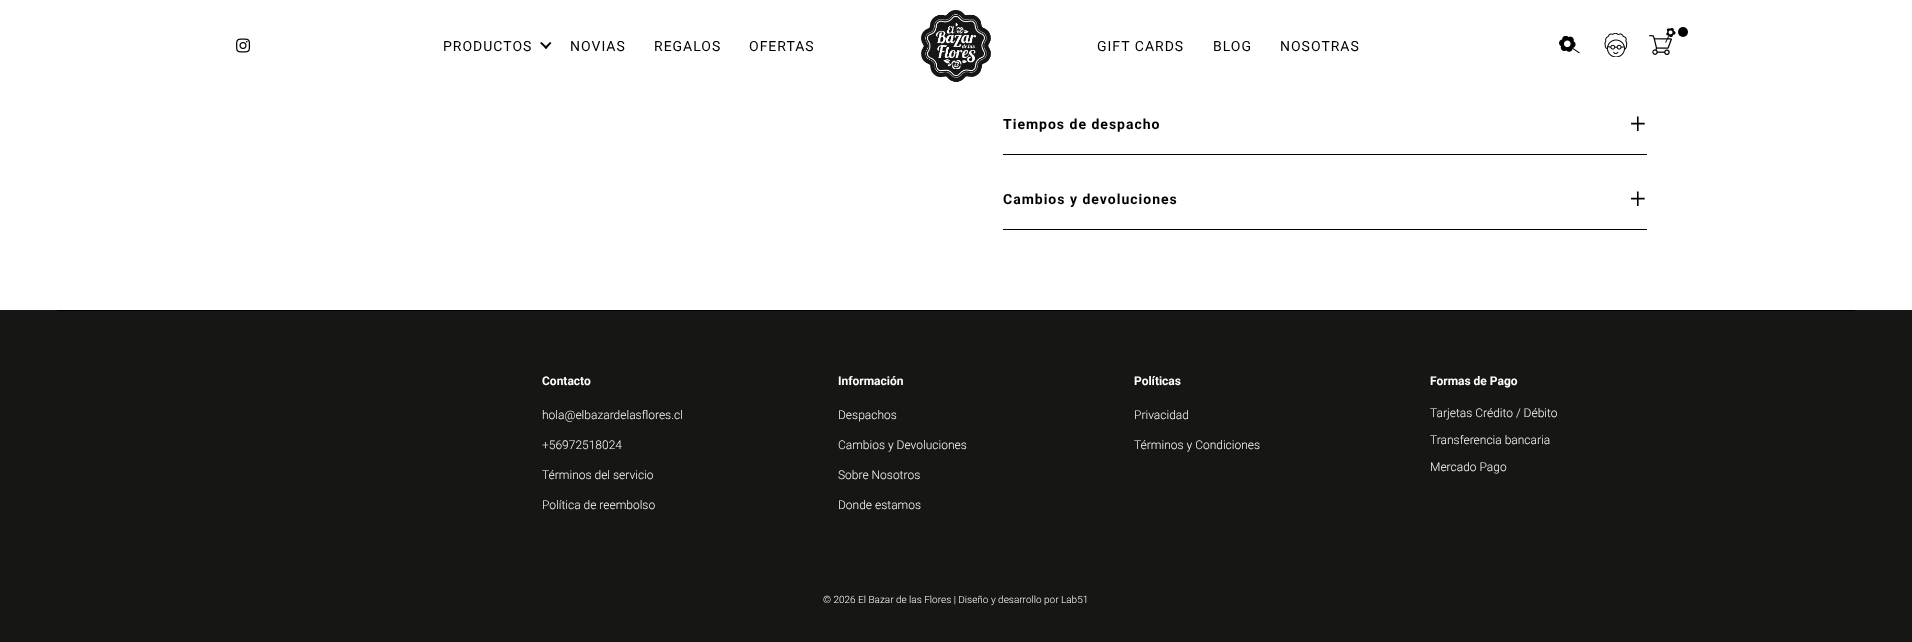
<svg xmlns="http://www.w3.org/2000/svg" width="1912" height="642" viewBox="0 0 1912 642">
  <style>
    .t1 { font: 14px Roboto; letter-spacing: 1px; fill: #000; }
    .t2 { font: bold 14px Roboto; letter-spacing: 1px; fill: #000; }
    .t3 { font: 300 28px Roboto; letter-spacing: 1px; fill: #000; }
    .t4 { font: bold 12px Roboto; fill: #fff; }
    .t5 { font: 300 12px Roboto; fill: #fff; }
    .t6 { font: 300 10px Roboto; fill: #fff; }
  </style>
  <rect width="100%" height="100%" fill="#fff"/>
  <image x="236" y="38" width="15" height="15" href="images/1.png"/>
  <text x="443" y="51" class="t1">PRODUCTOS</text>
  <path d="M544.5 47.5L550 42L551.5 43L546 49Z" fill="#000"/>
  <path d="M540 43L541.5 42L547.5 47.5L546 49Z" fill="#000"/>
  <text x="570" y="51" class="t1">NOVIAS</text>
  <text x="654" y="51" class="t1">REGALOS</text>
  <text x="749" y="51" class="t1">OFERTAS</text>
  <image x="921" y="10" width="70" height="72" href="images/2.png"/>
  <text x="1097" y="51" class="t1">GIFT CARDS</text>
  <text x="1213" y="51" class="t1">BLOG</text>
  <text x="1280" y="51" class="t1">NOSOTRAS</text>
  <image x="1559" y="36" width="21" height="18" href="images/3.png"/>
  <image x="1604" y="33" width="24" height="24" href="images/4.png"/>
  <image x="1649" y="28" width="27" height="27" href="images/5.png"/>
  <circle cx="1683" cy="32" r="5" fill="#000"/>
  <rect x="1003" y="154" width="644" height="1" fill="#000"/>
  <text x="1003" y="129" class="t2">Tiempos de despacho</text>
  <text x="1630" y="133" class="t3">+</text>
  <rect x="1003" y="229" width="644" height="1" fill="#000"/>
  <text x="1003" y="204" class="t2">Cambios y devoluciones</text>
  <text x="1630" y="208" class="t3">+</text>
  <rect x="0" y="310" width="1912" height="332" fill="#161615"/>
  <rect x="57" y="310" width="1798" height="1" fill="#000"/>
  <text x="542" y="385" class="t4">Contacto</text>
  <text x="542" y="419" class="t5">hola@elbazardelasflores.cl</text>
  <text x="542" y="449" class="t5">+56972518024</text>
  <text x="542" y="479" class="t5">Términos del servicio</text>
  <text x="542" y="509" class="t5">Política de reembolso</text>
  <text x="838" y="385" class="t4">Información</text>
  <text x="838" y="419" class="t5">Despachos</text>
  <text x="838" y="449" class="t5">Cambios y Devoluciones</text>
  <text x="838" y="479" class="t5">Sobre Nosotros</text>
  <text x="838" y="509" class="t5">Donde estamos</text>
  <text x="1134" y="385" class="t4">Políticas</text>
  <text x="1134" y="419" class="t5">Privacidad</text>
  <text x="1134" y="449" class="t5">Términos y Condiciones</text>
  <text x="1430" y="385" class="t4">Formas de Pago</text>
  <text x="1430" y="417" class="t5">Tarjetas Crédito / Débito</text>
  <text x="1430" y="444" class="t5">Transferencia bancaria</text>
  <text x="1430" y="471" class="t5">Mercado Pago</text>
  <text x="823" y="603" class="t6">© 2026 El Bazar de las Flores | Diseño y desarrollo por Lab51</text>
</svg>
